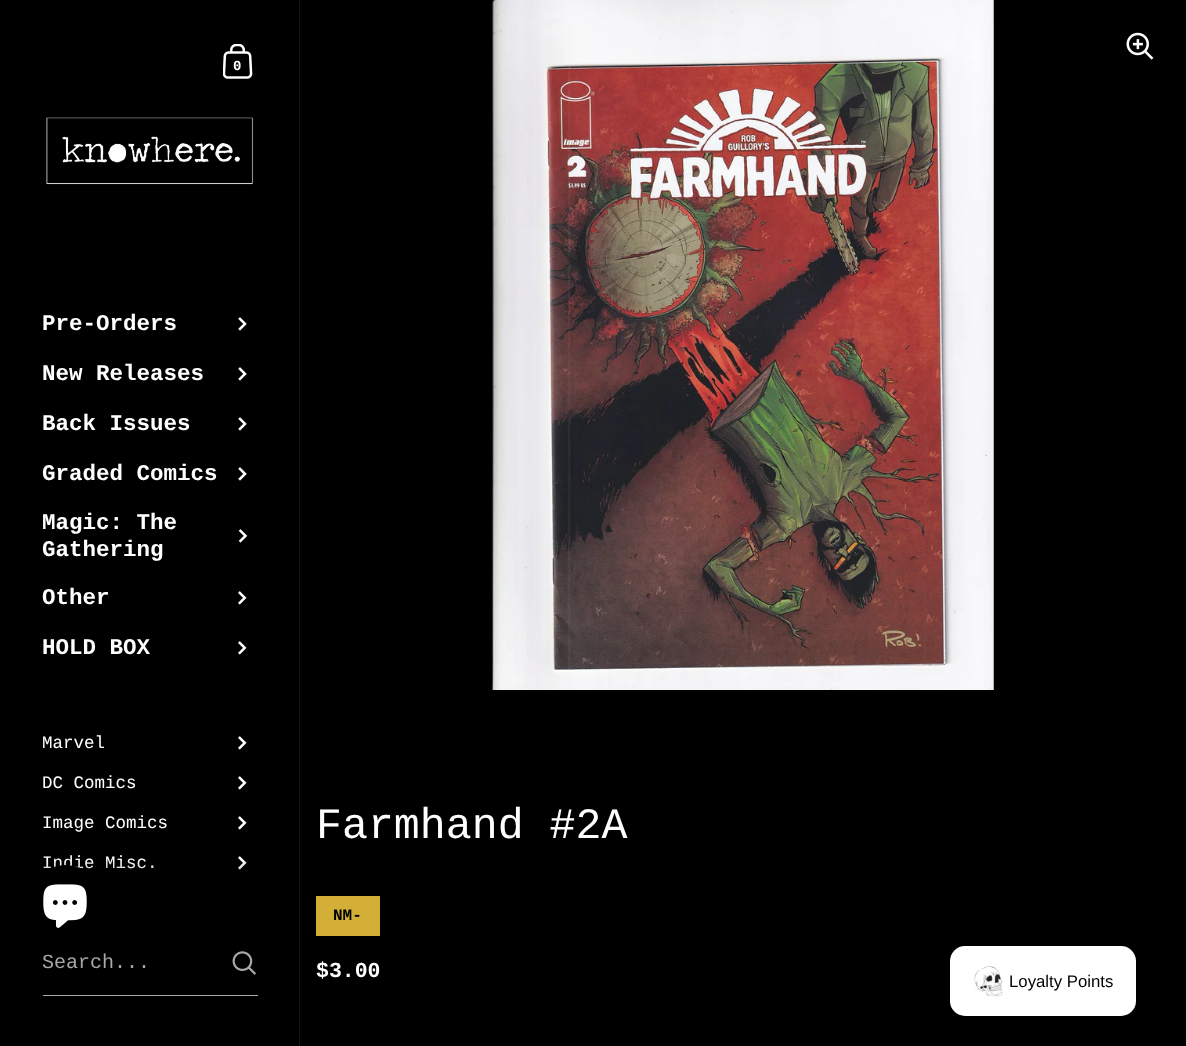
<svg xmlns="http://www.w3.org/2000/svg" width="1186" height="1046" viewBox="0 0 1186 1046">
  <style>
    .t1 { font: bold 14px Liberation Mono; fill: #fff; }
    .t2 { font: bold 22.5px Liberation Mono; fill: #fff; }
    .t3 { font: 17.5px Liberation Mono; fill: #fff; }
    .t4 { font: 20px Liberation Mono; fill: #a8a8a8; }
    .t5 { font: 43.25px Liberation Mono; fill: #fff; }
    .t6 { font: bold 16px Liberation Mono; fill: #000; }
    .t7 { font: bold 21.5px Liberation Mono; fill: #fff; }
    .t8 { font: 16.75px Liberation Sans; fill: #000; }
  </style>
  <defs>
    <linearGradient id="g1" gradientUnits="userSpaceOnUse" x1="150" y1="934" x2="150" y2="859"><stop offset="0" stop-color="#000"/><stop offset="1" stop-color="#000" stop-opacity="0"/></linearGradient>
  </defs>
  <rect width="100%" height="100%" fill="#000"/>
  <rect x="299" y="0" width="1" height="1046" fill="#141414"/>
  <image x="223" y="44" width="30" height="35" href="images/1.png"/>
  <text x="233" y="70" class="t1">0</text>
  <image x="46" y="117" width="208" height="68" href="images/2.png"/>
  <text x="42" y="330" class="t2">Pre-Orders</text>
  <image x="238" y="317" width="9" height="14" href="images/3.png"/>
  <text x="42" y="380" class="t2">New Releases</text>
  <image x="238" y="367" width="9" height="14" href="images/3.png"/>
  <text x="42" y="430" class="t2">Back Issues</text>
  <image x="238" y="417" width="9" height="14" href="images/3.png"/>
  <text x="42" y="480" class="t2">Graded Comics</text>
  <image x="238" y="467" width="9" height="14" href="images/3.png"/>
  <text x="42" y="529" class="t2">Magic: The</text>
  <text x="42" y="556" class="t2">Gathering</text>
  <image x="238" y="529" width="10" height="14" href="images/4.png"/>
  <text x="42" y="604" class="t2">Other</text>
  <image x="238" y="591" width="9" height="14" href="images/5.png"/>
  <text x="42" y="654" class="t2">HOLD BOX</text>
  <image x="238" y="641" width="9" height="14" href="images/5.png"/>
  <text x="42" y="748" class="t3">Marvel</text>
  <image x="238" y="736" width="9" height="14" href="images/5.png"/>
  <text x="42" y="788" class="t3">DC Comics</text>
  <image x="238" y="776" width="9" height="14" href="images/5.png"/>
  <text x="42" y="828" class="t3">Image Comics</text>
  <image x="238" y="816" width="9" height="14" href="images/5.png"/>
  <text x="42" y="868" class="t3">Indie Misc.</text>
  <image x="238" y="856" width="9" height="14" href="images/5.png"/>
  <rect x="43" y="861" width="203" height="9" fill="url(#g1)"/>
  <rect x="43" y="995" width="215" height="1" fill="#a8a8a8"/>
  <text x="42" y="968" class="t4">Search...</text>
  <image x="232" y="951" width="24" height="24" href="images/6.png"/>
  <image x="492" y="0" width="502" height="690" href="images/7.png"/>
  <image x="1126" y="32" width="28" height="28" href="images/8.png"/>
  <text x="316" y="838" class="t5">Farmhand #2A</text>
  <rect x="316" y="896" width="64" height="40" fill="#d4af37"/>
  <text x="333" y="920" class="t6">NM-</text>
  <text x="316" y="977" class="t7">$3.00</text>
  <circle cx="65.5" cy="902.5" r="37.5" fill="#000"/>
  <image x="43" y="884" width="44" height="44" href="images/9.png"/>
  <rect x="950" y="946" width="186" height="70" rx="15" fill="#fff"/>
  <image x="974" y="966" width="29" height="31" href="images/10.png"/>
  <text x="1009" y="987" class="t8">Loyalty Points</text>
</svg>
